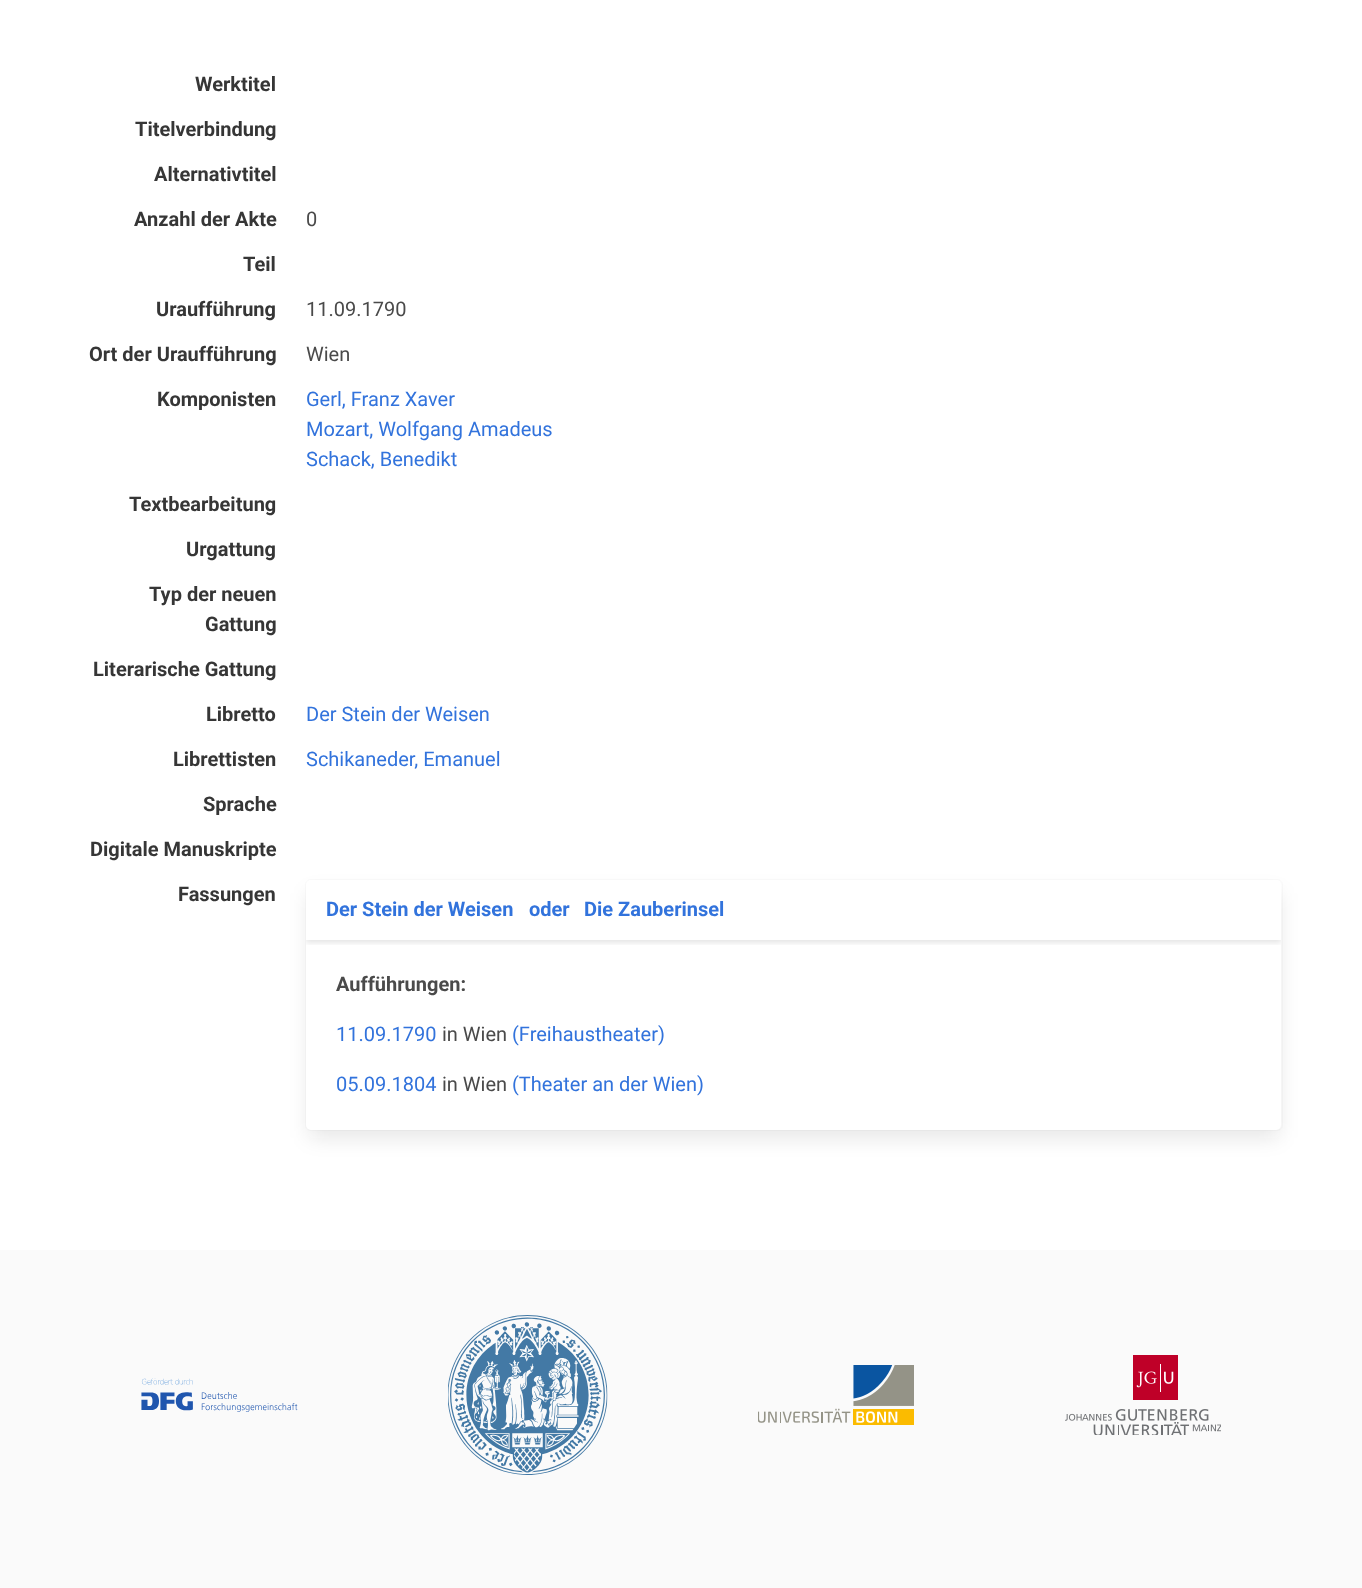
<svg xmlns="http://www.w3.org/2000/svg" width="1362" height="1588" viewBox="0 0 1362 1588">
  <style>
    .t1 { font: bold 20px Roboto; fill: #363636; }
    .t2 { font: 20px Roboto; fill: #4a4a4a; }
    .t3 { font: 20px Roboto; fill: #3273dc; }
    .t4 { font: bold 20px Roboto; fill: #3273dc; }
    .t5 { font: bold 20px Roboto; fill: #4a4a4a; }
  </style>
  <defs>
    <clipPath id="clip1"><rect x="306" y="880" width="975" height="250" rx="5"/></clipPath>
    <clipPath id="clip2"><rect x="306" y="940" width="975" height="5"/></clipPath>
  </defs>
  <rect width="100%" height="100%" fill="#fff"/>
  <text x="195" y="91" class="t1">Werktitel</text>
  <text x="135" y="136" class="t1">Titelverbindung</text>
  <text x="154" y="181" class="t1">Alternativtitel</text>
  <text x="134" y="226" class="t1">Anzahl der Akte</text>
  <text x="306" y="226" class="t2">0</text>
  <text x="243" y="271" class="t1">Teil</text>
  <text x="156" y="316" class="t1">Uraufführung</text>
  <text x="306" y="316" class="t2">11.09.1790</text>
  <text x="89" y="361" class="t1">Ort der Uraufführung</text>
  <text x="306" y="361" class="t2">Wien</text>
  <text x="157" y="406" class="t1">Komponisten</text>
  <text x="306" y="406" class="t3">Gerl, Franz Xaver</text>
  <text x="306" y="436" class="t3">Mozart, Wolfgang Amadeus</text>
  <text x="306" y="466" class="t3">Schack, Benedikt</text>
  <text x="129" y="511" class="t1">Textbearbeitung</text>
  <text x="186" y="556" class="t1">Urgattung</text>
  <text x="149" y="601" class="t1">Typ der neuen</text>
  <text x="205" y="631" class="t1">Gattung</text>
  <text x="93" y="676" class="t1">Literarische Gattung</text>
  <text x="206" y="721" class="t1">Libretto</text>
  <text x="306" y="721" class="t3">Der Stein der Weisen</text>
  <text x="173" y="766" class="t1">Librettisten</text>
  <text x="306" y="766" class="t3">Schikaneder, Emanuel</text>
  <text x="203" y="811" class="t1">Sprache</text>
  <text x="90" y="856" class="t1">Digitale Manuskripte</text>
  <text x="178" y="901" class="t1">Fassungen</text>
  <rect x="305.5" y="879.5" width="977" height="251" rx="5.5" fill="none" stroke="#fafafa"/>
  <rect x="309" y="893" width="970" height="245" rx="2.5" fill="#0a0a0a1a" filter="blur(10px)"/>
  <rect x="306" y="880" width="975" height="250" rx="5" fill="#fff"/>
  <g clip-path="url(#clip1)">
    <g clip-path="url(#clip2)">
      <rect x="306" y="883" width="975" height="60" fill="#0a0a0a1a" filter="blur(2.5px)"/>
    </g>
  </g>
  <text x="326" y="916" class="t4">Der Stein der Weisen</text>
  <text x="529" y="916" class="t4">oder</text>
  <text x="584" y="916" class="t4">Die Zauberinsel</text>
  <text x="336" y="991" class="t5">Aufführungen:</text>
  <text x="336" y="1041" class="t3">11.09.1790</text>
  <text x="442" y="1041" class="t2">in Wien</text>
  <text x="512" y="1041" class="t3">(Freihaustheater)</text>
  <text x="336" y="1091" class="t3">05.09.1804</text>
  <text x="442" y="1091" class="t2">in Wien</text>
  <text x="512" y="1091" class="t3">(Theater an der Wien)</text>
  <rect x="0" y="1250" width="1362" height="338" fill="#fafafa"/>
  <image x="141" y="1378" width="157" height="34" href="images/1.png"/>
  <image x="448" y="1315" width="160" height="160" href="images/2.png"/>
  <image x="758" y="1365" width="156" height="60" href="images/3.png"/>
  <image x="1065" y="1355" width="156" height="80" href="images/4.png"/>
</svg>
